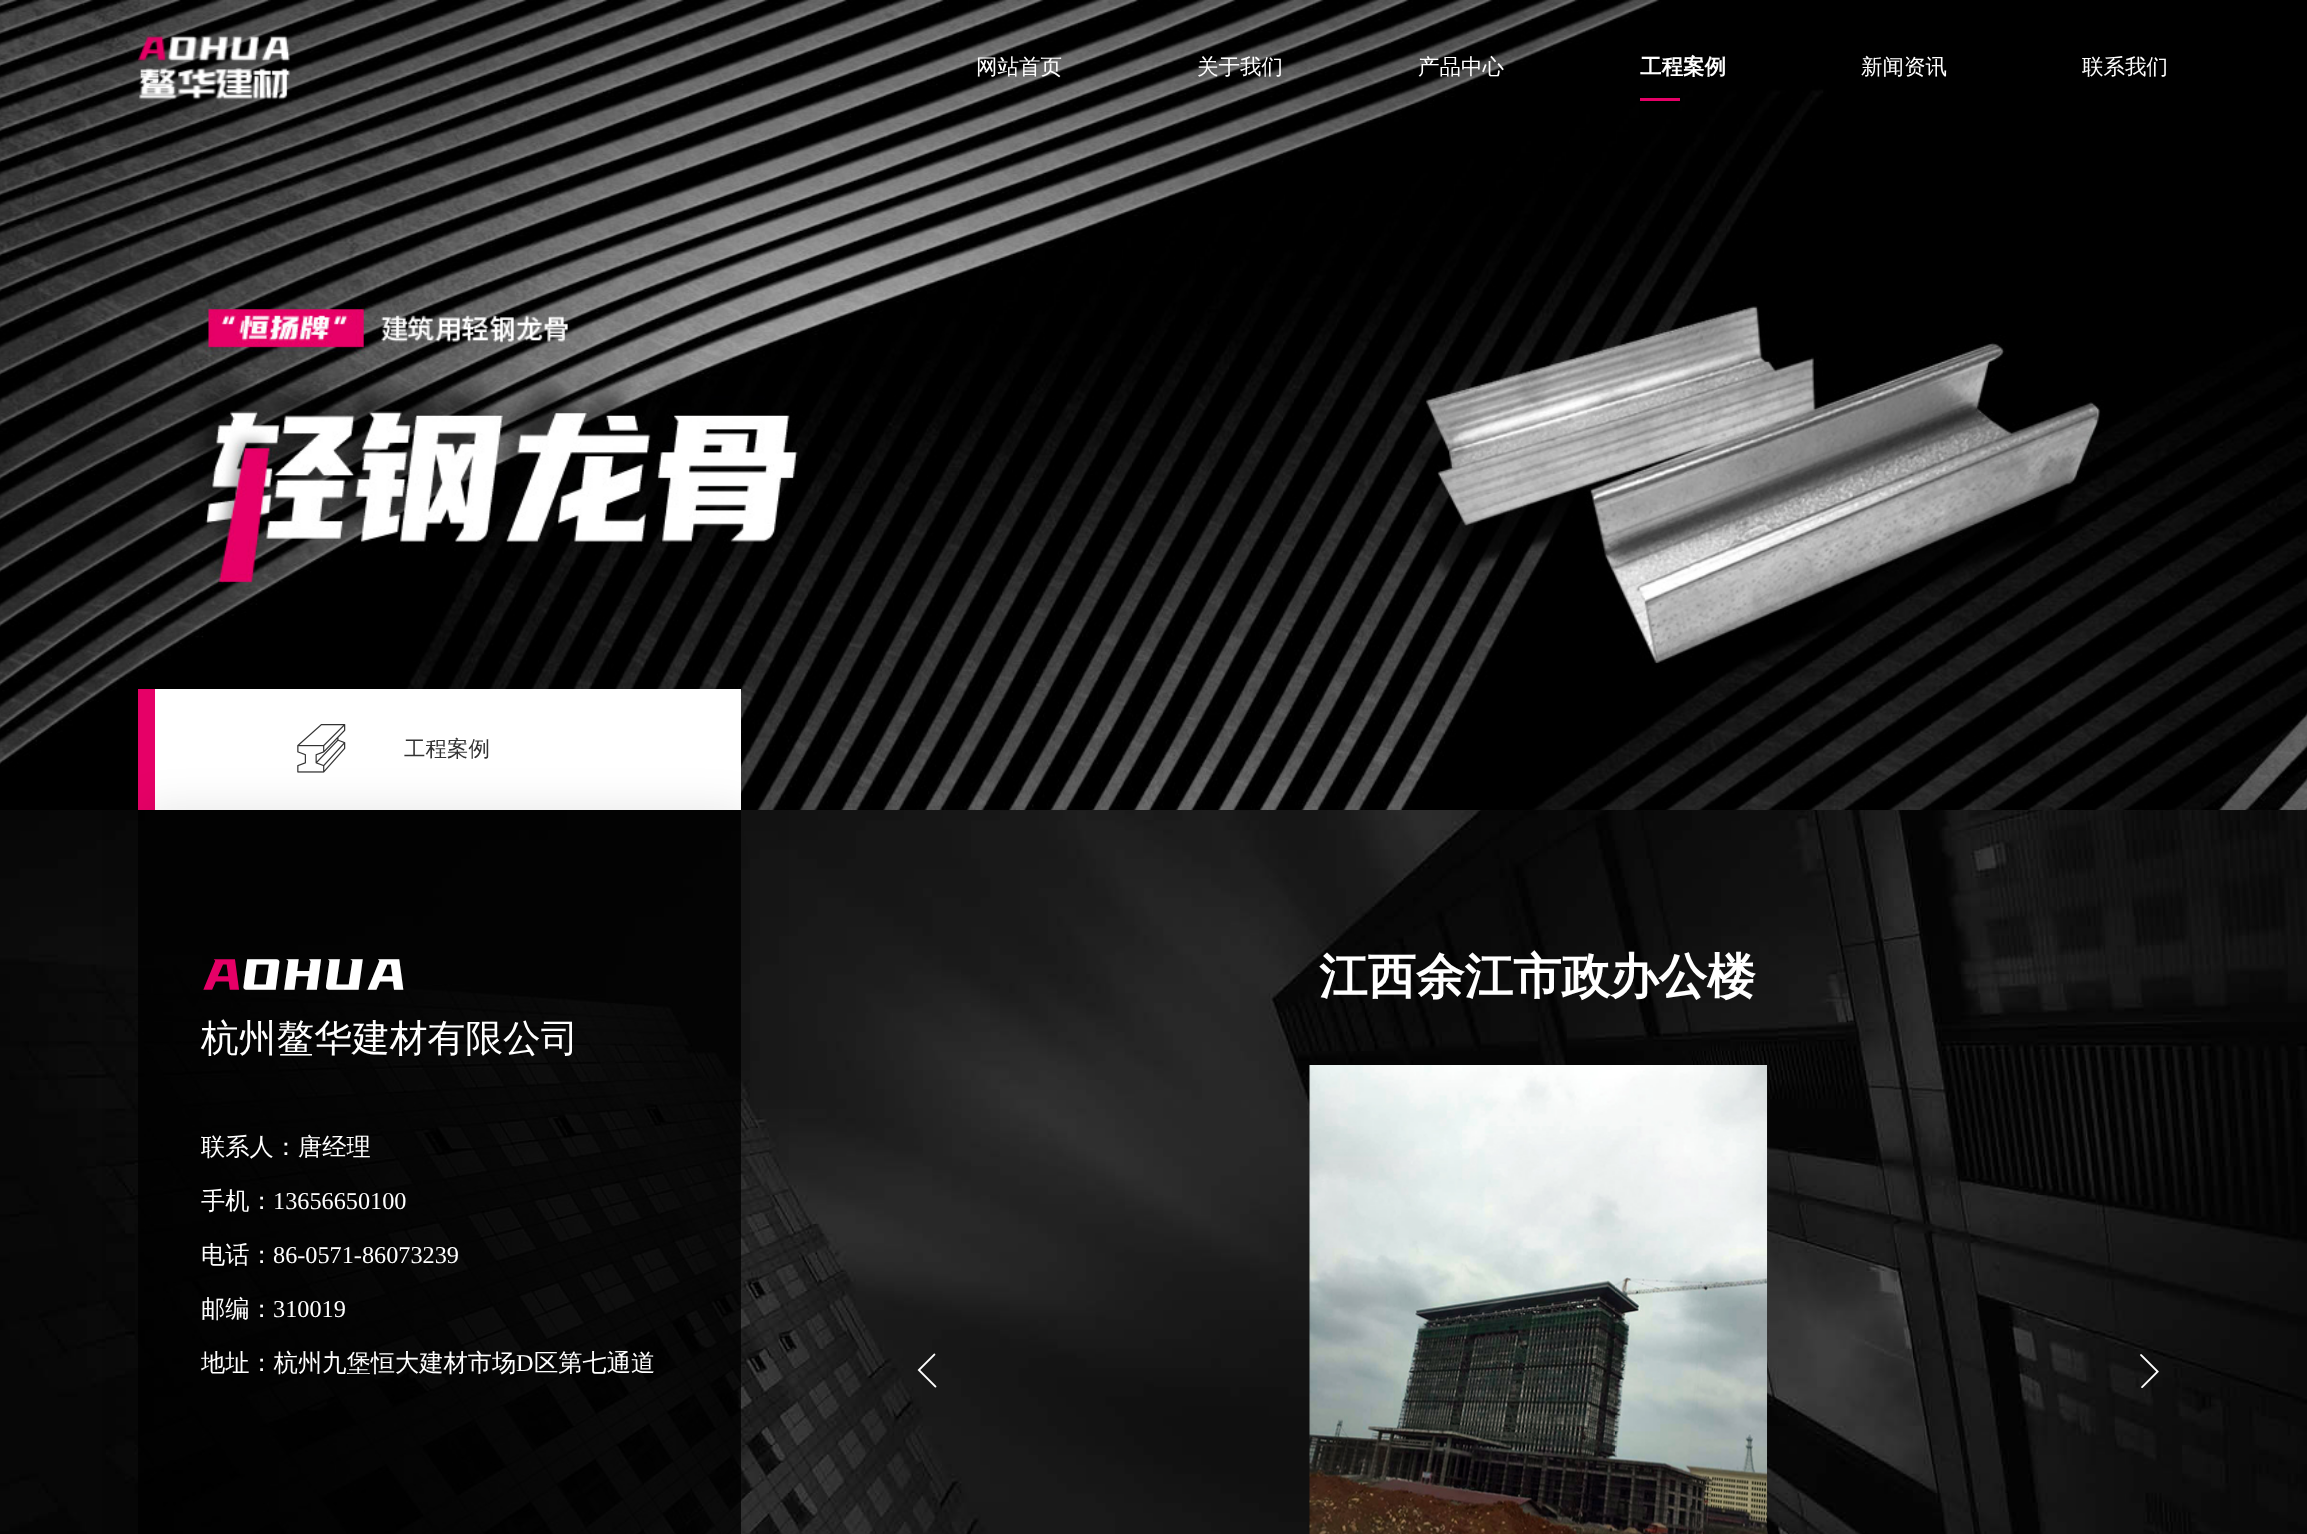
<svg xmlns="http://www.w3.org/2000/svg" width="2307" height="1534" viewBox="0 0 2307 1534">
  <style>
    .t1 { font: 500 21.5px WenQuanYi Zen Hei; fill: #fff; }
    .t2 { font: bold 21.5px WenQuanYi Zen Hei; fill: #fff; }
    .t3 { font: 500 21.5px WenQuanYi Zen Hei; fill: #333; }
    .t4 { font: 54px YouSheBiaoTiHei; fill: #e60067; }
    .t5 { font: 54px YouSheBiaoTiHei; fill: #fff; }
    .t6 { font: 500 37.75px WenQuanYi Zen Hei; fill: #fff; }
    .t7 { font: 500 24.25px WenQuanYi Zen Hei; fill: #fff; }
    .t8 { font: 24.25px Liberation Serif; fill: #fff; }
    .t9 { font: bold 48.5px WenQuanYi Zen Hei; fill: #fff; }
  </style>
  <defs>
    <clipPath id="clip1"><path d="M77 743H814V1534H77ZM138 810H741V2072H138Z" clip-rule="evenodd"/></clipPath>
  </defs>
  <rect width="100%" height="100%" fill="#fff"/>
  <image x="0" y="0" width="2307" height="810" href="images/2.png"/>
  <image x="138" y="35" width="152" height="65" href="images/1.png"/>
  <text x="976" y="74" class="t1">网站首页</text>
  <text x="1197" y="74" class="t1">关于我们</text>
  <text x="1418" y="74" class="t1">产品中心</text>
  <text x="1640" y="74" class="t2">工程案例</text>
  <rect x="1640" y="98" width="40" height="3" fill="#e60067"/>
  <text x="1861" y="74" class="t1">新闻资讯</text>
  <text x="2082" y="74" class="t1">联系我们</text>
  <rect x="155" y="689" width="586" height="121" fill="#fff"/>
  <rect x="138" y="689" width="17" height="121" fill="#e60067"/>
  <image x="297" y="724" width="49" height="49" href="images/3.png"/>
  <text x="404" y="756" class="t3">工程案例</text>
  <image x="0" y="810" width="2307" height="724" href="images/4.png"/>
  <g clip-path="url(#clip1)">
    <rect x="144" y="810" width="603" height="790" fill="#0001021a" filter="blur(22px)"/>
  </g>
  <rect x="138" y="810" width="603" height="724" fill="#000000cc"/>
  <text x="201" y="993" class="t4">A</text>
  <text x="241" y="993" class="t5">OHUA</text>
  <text x="201" y="1051" class="t6">杭州鳌华建材有限公司</text>
  <text x="201" y="1155" class="t7">联系人：唐经理</text>
  <text x="201" y="1209" class="t7">手机：</text>
  <text x="273" y="1209" class="t8">13656650100</text>
  <text x="201" y="1263" class="t7">电话：</text>
  <text x="273" y="1263" class="t8">86-0571-86073239</text>
  <text x="201" y="1317" class="t7">邮编：</text>
  <text x="273" y="1317" class="t8">310019</text>
  <text x="201" y="1371" class="t7">地址：杭州九堡恒大建材市场</text>
  <text x="516" y="1371" class="t8">D</text>
  <text x="534" y="1371" class="t7">区第七通道</text>
  <text x="1319" y="993" class="t9">江西余江市政办公楼</text>
  <image x="917" y="1353" width="20" height="35" href="images/5.png"/>
  <image x="1309" y="1065" width="459" height="469" href="images/6.png"/>
  <image x="2140" y="1354" width="19" height="34" href="images/7.png"/>
</svg>
